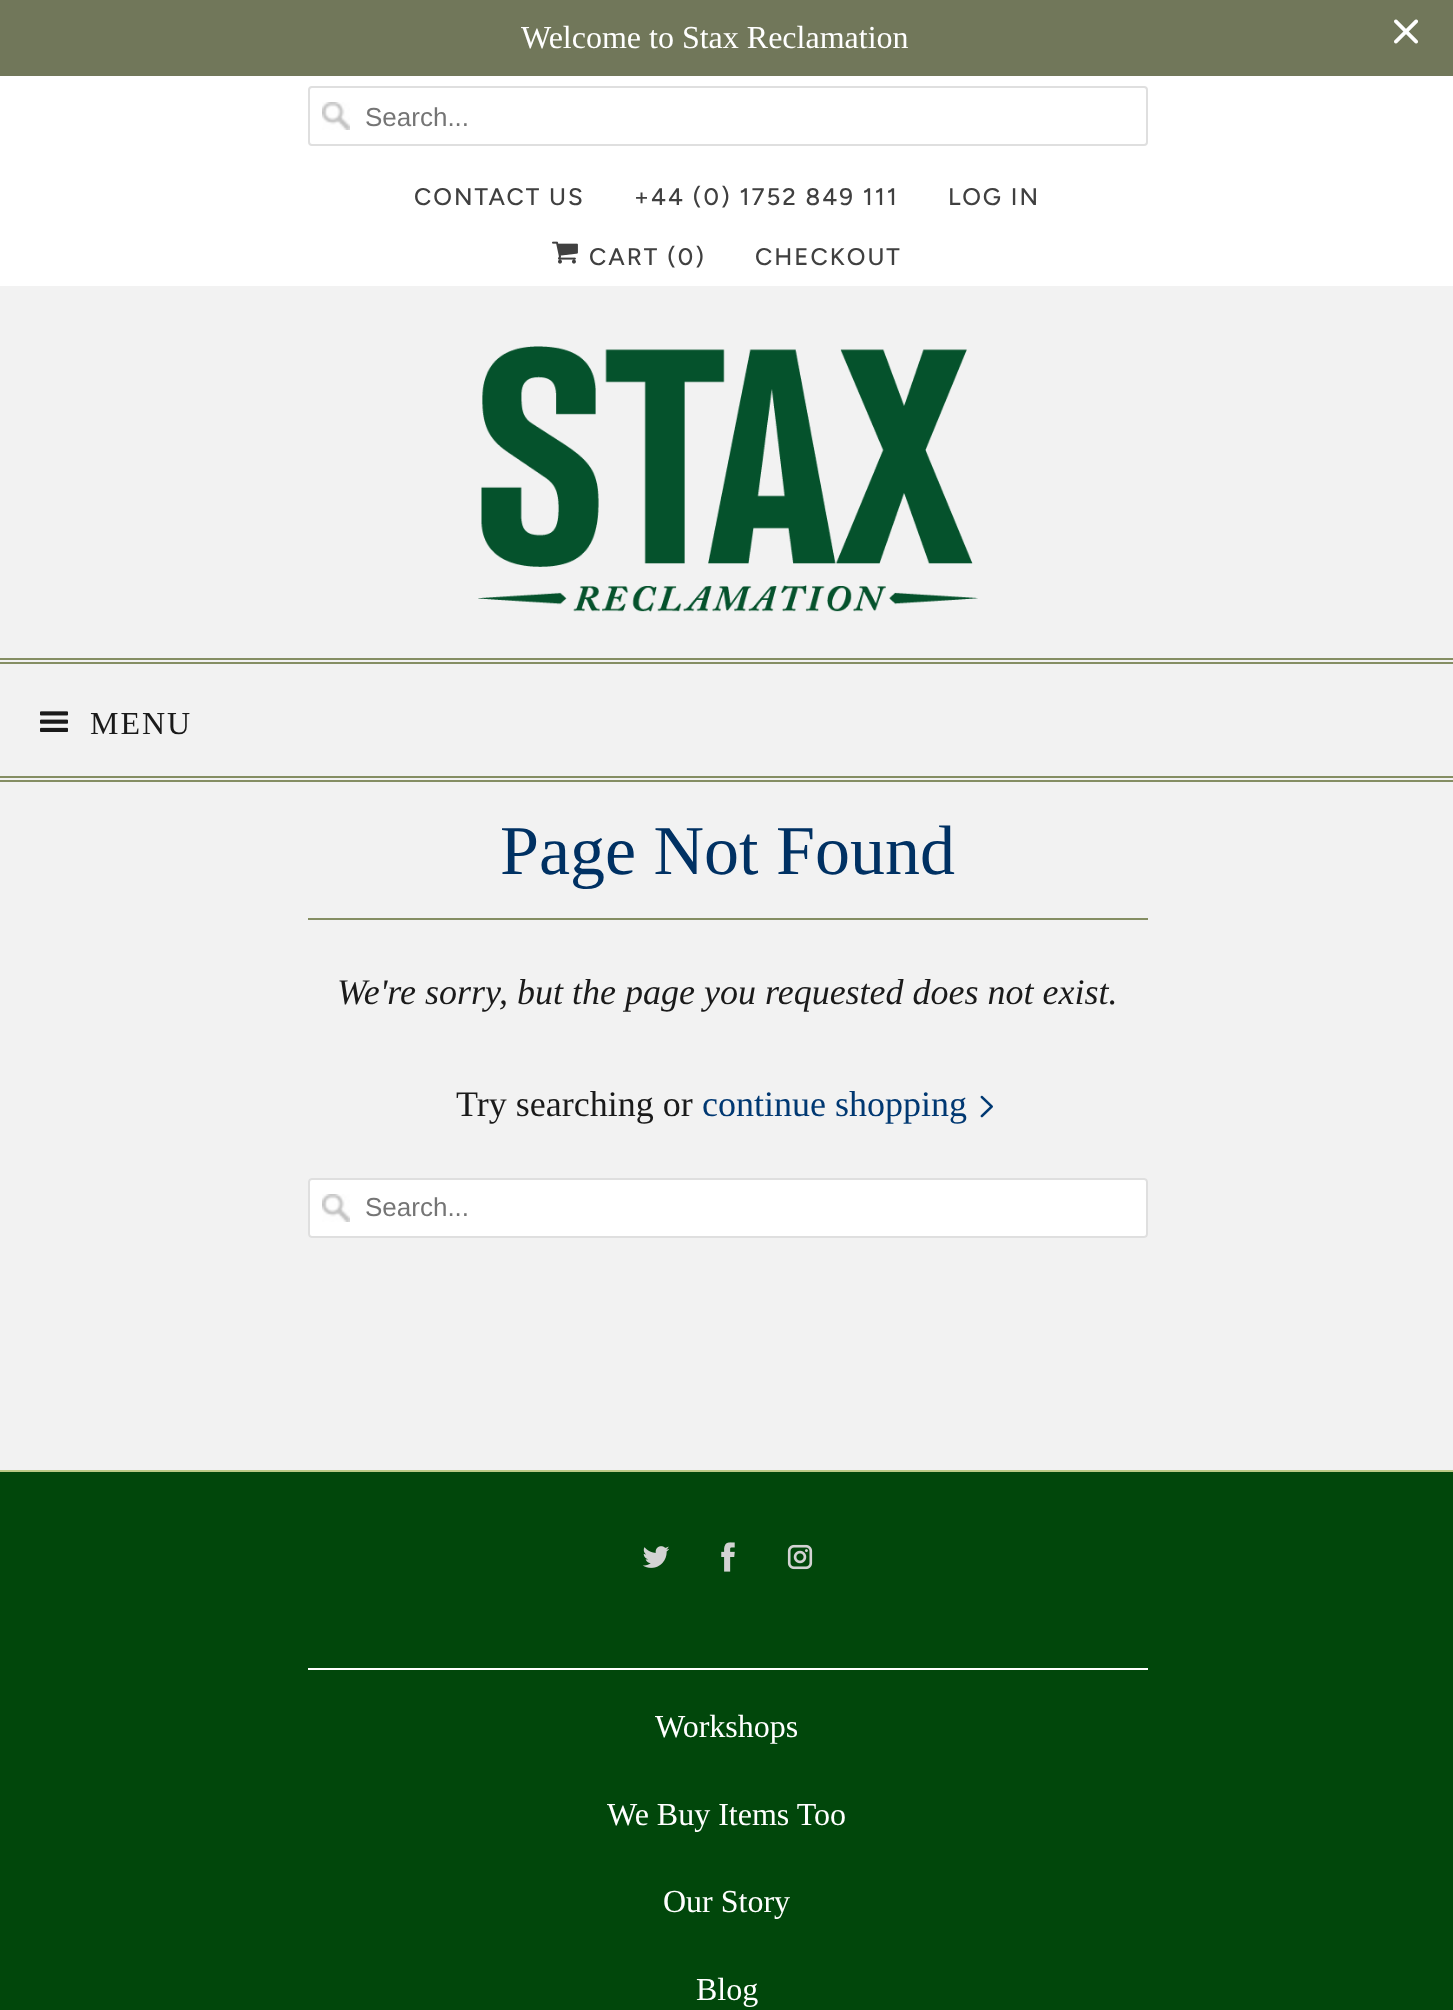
<svg xmlns="http://www.w3.org/2000/svg" width="1453" height="2010" viewBox="0 0 1453 2010">
  <style>
    .t1 { font: 32px Liberation Serif; fill: #fff; }
    .t2 { font: 26px Liberation Sans; fill: #757575; }
    .t3 { font: 500 24px Figtree; letter-spacing: 2px; fill: #404040; }
    .t4 { font: 32px Liberation Serif; letter-spacing: 2px; fill: #1a1a1a; }
    .t5 { font: 70px Liberation Serif; fill: #003163; }
    .t6 { font: italic 36px Liberation Serif; fill: #1a1a1a; }
    .t7 { font: 36px Liberation Serif; fill: #1a1a1a; }
    .t8 { font: 36px Liberation Serif; fill: #003872; }
  </style>
  <rect width="100%" height="100%" fill="#f2f2f2"/>
  <rect x="0" y="0" width="1453" height="76" fill="#71775a"/>
  <text x="521" y="48" class="t1">Welcome to Stax Reclamation</text>
  <image x="1394" y="19" width="24" height="25" href="images/1.png"/>
  <rect x="0" y="76" width="1453" height="210" fill="#fff"/>
  <image x="322" y="102" width="28" height="28" href="images/2.png"/>
  <rect x="309" y="87" width="838" height="58" rx="3" fill="none" stroke="#dfdfdf" stroke-width="2"/>
  <text x="365" y="126" class="t2">Search...</text>
  <text x="414" y="205" class="t3">CONTACT US</text>
  <text x="634" y="205" class="t3">+44 (0) 1752 849 111</text>
  <text x="948" y="205" class="t3">LOG IN</text>
  <image x="552" y="241" width="26" height="23" href="images/3.png"/>
  <text x="589" y="265" class="t3">CART (0)</text>
  <text x="755" y="265" class="t3">CHECKOUT</text>
  <image x="478" y="346" width="500" height="266" href="images/4.png"/>
  <rect x="0" y="658" width="1453" height="2" fill="#858e63"/>
  <rect x="0" y="662" width="1453" height="2" fill="#858e63"/>
  <rect x="0" y="776" width="1453" height="2" fill="#858e63"/>
  <rect x="0" y="780" width="1453" height="2" fill="#858e63"/>
  <image x="40" y="711" width="28" height="21" href="images/5.png"/>
  <text x="90" y="734" class="t4">MENU</text>
  <rect x="308" y="918" width="840" height="2" fill="#858e63"/>
  <text x="500" y="874" class="t5">Page Not Found</text>
  <text x="337" y="1004" class="t6">We're sorry, but the page you requested does not exist.</text>
  <text x="456" y="1116" class="t7">Try searching or</text>
  <text x="702" y="1116" class="t8">continue shopping</text>
  <image x="980" y="1095" width="13" height="23" href="images/6.png"/>
  <rect x="308" y="1178" width="840" height="60" rx="4" fill="#fff"/>
  <image x="322" y="1194" width="28" height="28" href="images/2.png"/>
  <rect x="309" y="1179" width="838" height="58" rx="3" fill="none" stroke="#dfdfdf" stroke-width="2"/>
  <text x="365" y="1216" class="t2">Search...</text>
  <rect x="0" y="1472" width="1453" height="538" fill="#01470b"/>
  <rect x="0" y="1470" width="1453" height="2" fill="#bac885"/>
  <image x="642" y="1546" width="28" height="22" href="images/7.png"/>
  <image x="721" y="1542" width="14" height="30" href="images/8.png"/>
  <image x="787" y="1544" width="26" height="26" href="images/9.png"/>
  <rect x="308" y="1668" width="840" height="2" fill="#fff"/>
  <text x="655" y="1737" class="t1">Workshops</text>
  <text x="607" y="1825" class="t1">We Buy Items Too</text>
  <text x="663" y="1912" class="t1">Our Story</text>
  <text x="696" y="2000" class="t1">Blog</text>
</svg>
